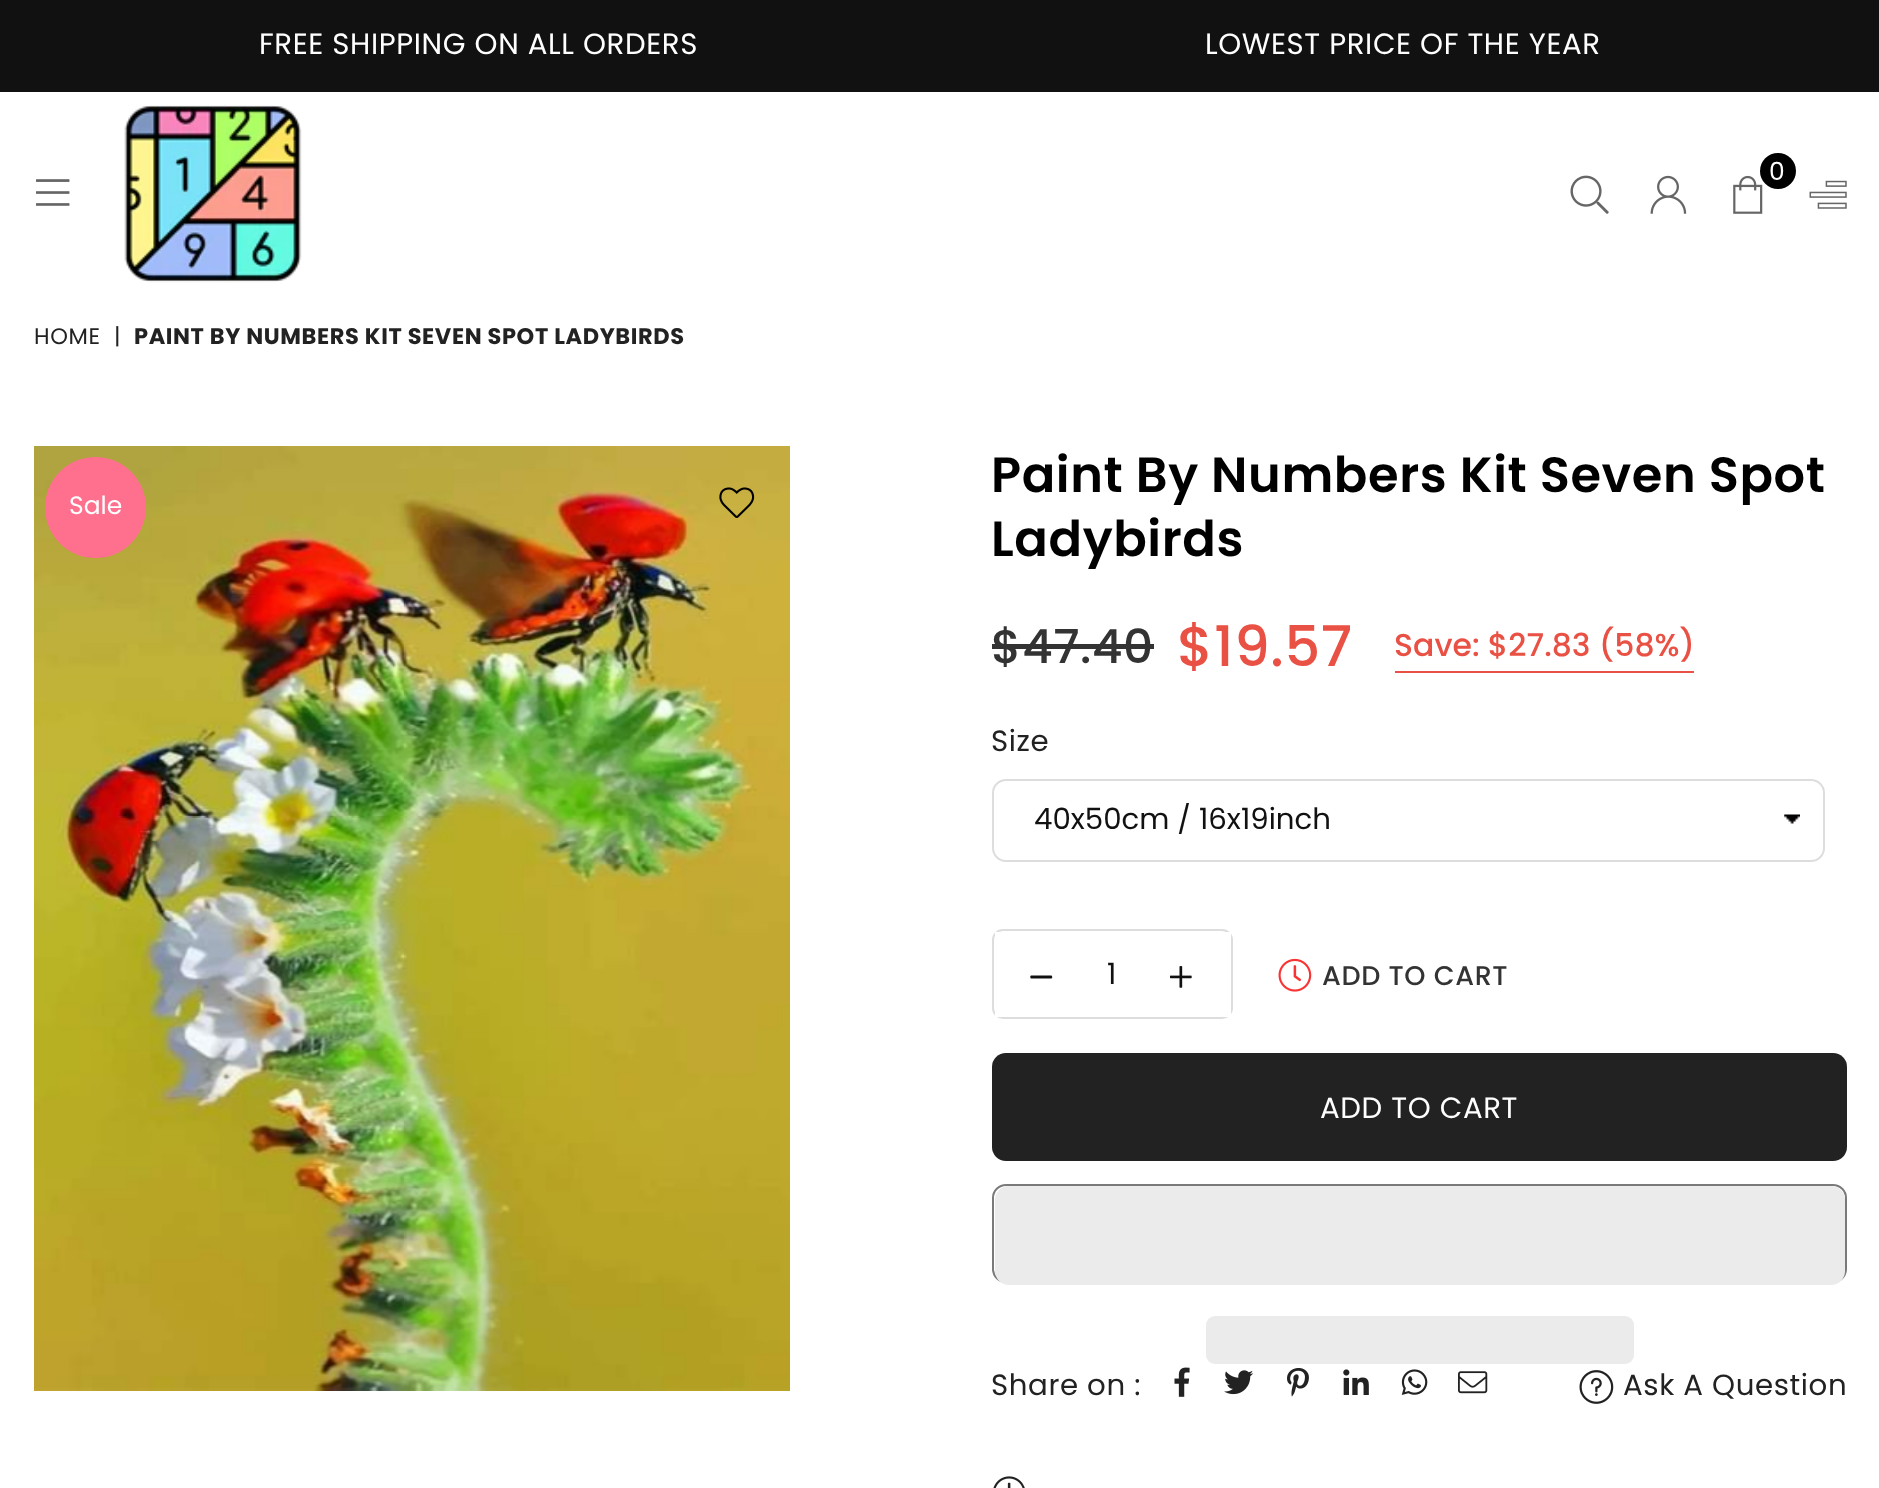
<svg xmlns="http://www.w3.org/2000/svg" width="1879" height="1488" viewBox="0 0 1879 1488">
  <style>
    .t1 { font: 29.25px Poppins; letter-spacing: 0.6px; fill: #fff; }
    .t2 { font: 25px Poppins; letter-spacing: 0.6px; fill: #fff; }
    .t3 { font: 22.5px Poppins; letter-spacing: 0.6px; fill: #222; }
    .t4 { font: bold 22.5px Poppins; letter-spacing: 0.6px; fill: #222; }
    .t5 { font: 25px Poppins; fill: #fff; }
    .t6 { font: 600 49.5px Poppins; letter-spacing: 0.6px; fill: #000; }
    .t7 { font: 500 47px Poppins; letter-spacing: 0.6px; fill: #333; }
    .t8 { font: 500 56px Poppins; letter-spacing: 0.6px; fill: #e95144; }
    .t9 { font: 500 31.5px Poppins; fill: #e95144; }
    .t10 { font: 29.25px Poppins; letter-spacing: 0.6px; fill: #222; }
    .t11 { font: 29.25px Poppins; fill: #111; }
    .t12 { font: 500 27px Poppins; letter-spacing: 0.6px; fill: #333; }
  </style>
  <defs>
    <clipPath id="clip1"><rect x="1035" y="803" width="720" height="34"/></clipPath>
  </defs>
  <rect width="100%" height="100%" fill="#fff"/>
  <rect x="0" y="0" width="1879" height="92" fill="#111"/>
  <text x="259" y="54" class="t1">FREE SHIPPING ON ALL ORDERS</text>
  <text x="1205" y="54" class="t1">LOWEST PRICE OF THE YEAR</text>
  <image x="124" y="105" width="178" height="178" href="images/1.png"/>
  <image x="1733" y="175" width="30" height="39" href="images/2.png"/>
  <circle cx="1778" cy="171" r="18" fill="#000"/>
  <text x="1769" y="180" class="t2">0</text>
  <image x="1570" y="175" width="39" height="39" href="images/3.png"/>
  <image x="1650" y="175" width="37" height="39" href="images/4.png"/>
  <image x="1809" y="180" width="38" height="29" href="images/5.png"/>
  <image x="36" y="179" width="34" height="27" href="images/6.png"/>
  <text x="34" y="344" class="t3">HOME</text>
  <text x="114" y="344" class="t3">|</text>
  <text x="134" y="344" class="t4">PAINT BY NUMBERS KIT SEVEN SPOT LADYBIRDS</text>
  <image x="34" y="446" width="756" height="945" href="images/7.png"/>
  <circle cx="95.5" cy="507.5" r="50.5" fill="#ff708e"/>
  <text x="69" y="514" class="t5">Sale</text>
  <image x="719" y="487" width="36" height="31" href="images/8.png"/>
  <text x="991" y="492" class="t6">Paint By Numbers Kit Seven Spot</text>
  <text x="991" y="556" class="t6">Ladybirds</text>
  <text x="991" y="663" class="t7">$47.40</text>
  <rect x="992" y="644" width="162" height="5" fill="#333"/>
  <text x="1177" y="666" class="t8">$19.57</text>
  <rect x="1395" y="671" width="299" height="2" fill="#e95144"/>
  <text x="1394" y="656" class="t9">Save: $27.83 (58%)</text>
  <text x="991" y="751" class="t10">Size</text>
  <image x="1784" y="814" width="16" height="10" href="images/9.png"/>
  <rect x="993" y="780" width="831" height="81" rx="13" fill="none" stroke="#ddd" stroke-width="2"/>
  <g clip-path="url(#clip1)">
    <text x="1034" y="829" class="t11">40x50cm / 16x19inch</text>
  </g>
  <rect x="993" y="930" width="239" height="88" rx="10" fill="none" stroke="#ddd" stroke-width="2"/>
  <rect x="995" y="932" width="7" height="85" fill="#fff"/>
  <path d="M1051.5 978.5C1052.5 978.5 1052.5 976 1051.5 975.5H1031C1030 976 1030 978 1031 978.5Z" fill="#111"/>
  <text x="1107" y="984" class="t11">1</text>
  <rect x="1223" y="932" width="8" height="85" fill="#fff"/>
  <image x="1170" y="966" width="22" height="22" href="images/10.png"/>
  <image x="1278" y="958" width="34" height="34" href="images/11.png"/>
  <text x="1322" y="985" class="t12">ADD TO CART</text>
  <rect x="992" y="1053" width="855" height="108" rx="14" fill="#222"/>
  <text x="1320" y="1118" class="t1">ADD TO CART</text>
  <rect x="993" y="1185" width="853" height="97" rx="13" fill="none" stroke="#7a7a7a" stroke-width="2"/>
  <rect x="995" y="1186" width="850" height="99" rx="14" fill="#ebebeb"/>
  <rect x="1206" y="1316" width="428" height="48" rx="9" fill="#ebebeb"/>
  <text x="991" y="1395" class="t10">Share on :</text>
  <image x="1174" y="1367" width="16" height="30" href="images/12.png"/>
  <image x="1224" y="1370" width="30" height="25" href="images/13.png"/>
  <image x="1287" y="1367" width="22" height="30" href="images/14.png"/>
  <image x="1343" y="1369" width="26" height="26" href="images/15.png"/>
  <image x="1401" y="1369" width="27" height="26" href="images/16.png"/>
  <image x="1458" y="1371" width="30" height="23" href="images/17.png"/>
  <image x="1579" y="1370" width="35" height="34" href="images/18.png"/>
  <text x="1623" y="1395" class="t10">Ask A Question</text>
  <image x="993" y="1476" width="32" height="12" href="images/19.png"/>
</svg>
